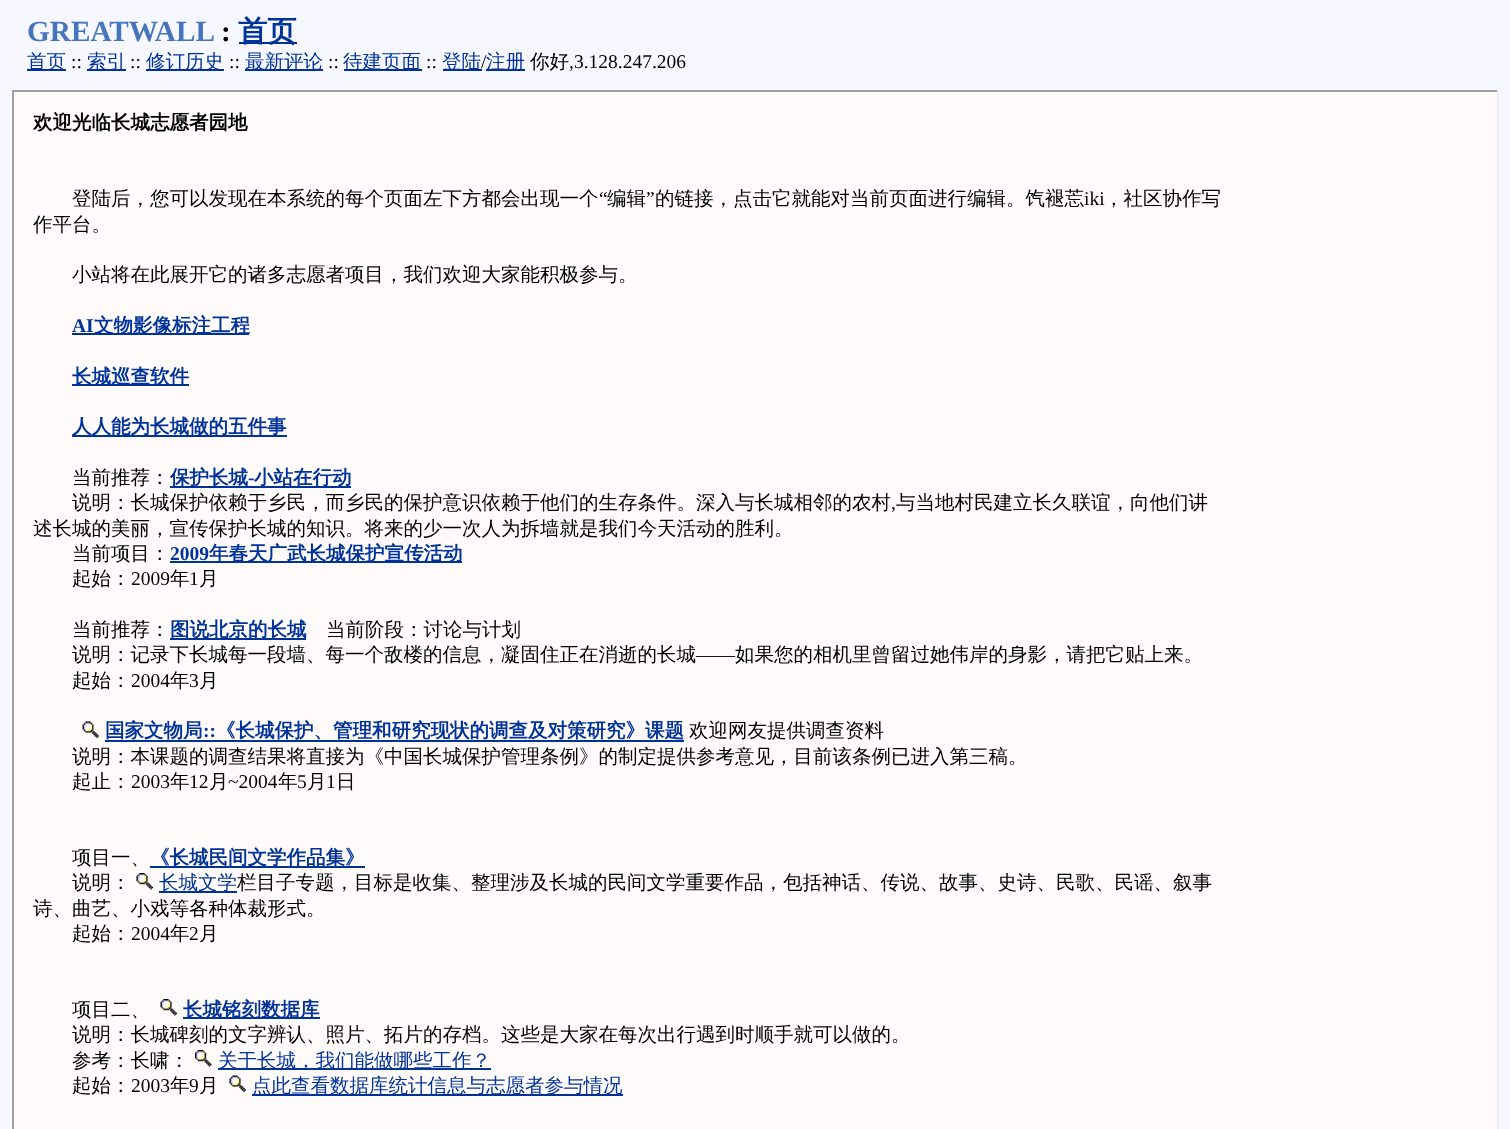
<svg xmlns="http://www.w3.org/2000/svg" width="1510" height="1129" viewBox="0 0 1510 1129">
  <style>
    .t1 { font: bold 29.25px Liberation Serif; fill: #4775bd; }
    .t2 { font: bold 29.25px Liberation Serif; fill: #000; }
    .t3 { font: bold 29.25px WenQuanYi Zen Hei; fill: #039; }
    .t4 { font: 500 19.5px WenQuanYi Zen Hei; fill: #039; }
    .t5 { font: 19.5px Liberation Serif; fill: #000; }
    .t6 { font: 500 19.5px WenQuanYi Zen Hei; fill: #000; }
    .t7 { font: bold 19.5px WenQuanYi Zen Hei; fill: #000; }
    .t8 { font: bold 19.5px Liberation Serif; fill: #039; }
    .t9 { font: bold 19.5px WenQuanYi Zen Hei; fill: #039; }
  </style>
  <rect width="100%" height="100%" fill="#f7f8ff"/>
  <text x="27" y="41" class="t1">GREATWALL</text>
  <text x="221" y="41" class="t2">:</text>
  <rect x="239" y="42" width="58" height="2" fill="#039"/>
  <text x="238" y="41" class="t3">首页</text>
  <rect x="27" y="69" width="39" height="2" fill="#039"/>
  <text x="27" y="68" class="t4">首页</text>
  <text x="71" y="68" class="t5">::</text>
  <rect x="87" y="69" width="39" height="2" fill="#039"/>
  <text x="87" y="68" class="t4">索引</text>
  <text x="130" y="68" class="t5">::</text>
  <rect x="146" y="69" width="78" height="2" fill="#039"/>
  <text x="146" y="68" class="t4">修订历史</text>
  <text x="229" y="68" class="t5">::</text>
  <rect x="245" y="69" width="78" height="2" fill="#039"/>
  <text x="245" y="68" class="t4">最新评论</text>
  <text x="328" y="68" class="t5">::</text>
  <rect x="344" y="69" width="78" height="2" fill="#039"/>
  <text x="343" y="68" class="t4">待建页面</text>
  <text x="426" y="68" class="t5">::</text>
  <rect x="443" y="69" width="39" height="2" fill="#039"/>
  <text x="442" y="68" class="t4">登陆</text>
  <text x="481" y="68" class="t5">/</text>
  <rect x="486" y="69" width="39" height="2" fill="#039"/>
  <text x="486" y="68" class="t4">注册</text>
  <text x="530" y="68" class="t6">你好</text>
  <text x="569" y="68" class="t5">,3.128.247.206</text>
  <rect x="14" y="92" width="1483" height="1037" fill="#fffbfb"/>
  <rect x="12" y="90" width="1487" height="2" fill="#9f9f9f"/>
  <rect x="1497" y="90" width="2" height="1039" fill="#eee"/>
  <rect x="12" y="90" width="2" height="1039" fill="#9f9f9f"/>
  <text x="33" y="129" class="t7">欢迎光临长城志愿者园地</text>
  <text x="72" y="205" class="t6">登陆后，您可以发现在本系统的每个页面左下方都会出现一个</text>
  <text x="599" y="205" class="t5">“</text>
  <text x="607" y="205" class="t6">编辑</text>
  <text x="646" y="205" class="t5">”</text>
  <text x="655" y="205" class="t6">的链接，点击它就能对当前页面进行编辑。饩褪莣</text>
  <text x="1084" y="205" class="t5">iki</text>
  <text x="1104" y="205" class="t6">，社区协作写</text>
  <text x="33" y="231" class="t6">作平台。</text>
  <text x="72" y="281" class="t6">小站将在此展开它的诸多志愿者项目，我们欢迎大家能积极参与。</text>
  <text x="72" y="332" class="t8">AI</text>
  <rect x="72" y="333" width="177" height="2" fill="#039"/>
  <text x="94" y="332" class="t9">文物影像标注工程</text>
  <rect x="72" y="384" width="117" height="2" fill="#039"/>
  <text x="72" y="383" class="t9">长城巡查软件</text>
  <rect x="72" y="435" width="215" height="2" fill="#039"/>
  <text x="72" y="433" class="t9">人人能为长城做的五件事</text>
  <text x="72" y="484" class="t6">当前推荐：</text>
  <rect x="170" y="486" width="181" height="2" fill="#039"/>
  <text x="170" y="484" class="t9">保护长城</text>
  <text x="248" y="484" class="t8">-</text>
  <text x="254" y="484" class="t9">小站在行动</text>
  <text x="72" y="509" class="t6">说明：长城保护依赖于乡民，而乡民的保护意识依赖于他们的生存条件。深入与长城相邻的农村</text>
  <text x="891" y="509" class="t5">,</text>
  <text x="896" y="509" class="t6">与当地村民建立长久联谊，向他们讲</text>
  <text x="33" y="535" class="t6">述长城的美丽，宣传保护长城的知识。将来的少一次人为拆墙就是我们今天活动的胜利。</text>
  <text x="72" y="560" class="t6">当前项目：</text>
  <text x="170" y="560" class="t8">2009</text>
  <rect x="170" y="561" width="292" height="2" fill="#039"/>
  <text x="209" y="560" class="t9">年春天广武长城保护宣传活动</text>
  <text x="72" y="585" class="t6">起始：</text>
  <text x="131" y="585" class="t5">2009</text>
  <text x="170" y="585" class="t6">年</text>
  <text x="189" y="585" class="t5">1</text>
  <text x="199" y="585" class="t6">月</text>
  <text x="72" y="636" class="t6">当前推荐：</text>
  <rect x="170" y="638" width="136" height="2" fill="#039"/>
  <text x="170" y="636" class="t9">图说北京的长城</text>
  <text x="326" y="636" class="t6">当前阶段：讨论与计划</text>
  <text x="72" y="661" class="t6">说明：记录下长城每一段墙、每一个敌楼的信息，凝固住正在消逝的长城</text>
  <text x="696" y="661" class="t5">——</text>
  <text x="735" y="661" class="t6">如果您的相机里曾留过她伟岸的身影，请把它贴上来。</text>
  <text x="72" y="687" class="t6">起始：</text>
  <text x="131" y="687" class="t5">2004</text>
  <text x="170" y="687" class="t6">年</text>
  <text x="189" y="687" class="t5">3</text>
  <text x="199" y="687" class="t6">月</text>
  <image x="82" y="721" width="17" height="17" href="images/1.png"/>
  <text x="105" y="737" class="t9">国家文物局</text>
  <text x="203" y="737" class="t8">::</text>
  <rect x="105" y="740" width="579" height="2" fill="#039"/>
  <text x="216" y="737" class="t9">《长城保护、管理和研究现状的调查及对策研究》课题</text>
  <text x="689" y="737" class="t6">欢迎网友提供调查资料</text>
  <text x="72" y="763" class="t6">说明：本课题的调查结果将直接为《中国长城保护管理条例》的制定提供参考意见，目前该条例已进入第三稿。</text>
  <text x="72" y="788" class="t6">起止：</text>
  <text x="131" y="788" class="t5">2003</text>
  <text x="170" y="788" class="t6">年</text>
  <text x="189" y="788" class="t5">12</text>
  <text x="209" y="788" class="t6">月</text>
  <text x="228" y="788" class="t5">~2004</text>
  <text x="278" y="788" class="t6">年</text>
  <text x="297" y="788" class="t5">5</text>
  <text x="307" y="788" class="t6">月</text>
  <text x="326" y="788" class="t5">1</text>
  <text x="336" y="788" class="t6">日</text>
  <text x="72" y="864" class="t6">项目一、</text>
  <rect x="150" y="866" width="215" height="2" fill="#039"/>
  <text x="150" y="864" class="t9">《长城民间文学作品集》</text>
  <text x="72" y="889" class="t6">说明：</text>
  <image x="136" y="873" width="17" height="17" href="images/2.png"/>
  <rect x="159" y="891" width="78" height="2" fill="#039"/>
  <text x="159" y="889" class="t4">长城文学</text>
  <text x="237" y="889" class="t6">栏目子专题，目标是收集、整理涉及长城的民间文学重要作品，包括神话、传说、故事、史诗、民歌、民谣、叙事</text>
  <text x="33" y="915" class="t6">诗、曲艺、小戏等各种体裁形式。</text>
  <text x="72" y="940" class="t6">起始：</text>
  <text x="131" y="940" class="t5">2004</text>
  <text x="170" y="940" class="t6">年</text>
  <text x="189" y="940" class="t5">2</text>
  <text x="199" y="940" class="t6">月</text>
  <text x="72" y="1016" class="t6">项目二、</text>
  <image x="160" y="999" width="17" height="17" href="images/2.png"/>
  <rect x="183" y="1017" width="137" height="2" fill="#039"/>
  <text x="183" y="1016" class="t9">长城铭刻数据库</text>
  <text x="72" y="1041" class="t6">说明：长城碑刻的文字辨认、照片、拓片的存档。这些是大家在每次出行遇到时顺手就可以做的。</text>
  <text x="72" y="1067" class="t6">参考：长啸：</text>
  <image x="195" y="1050" width="17" height="17" href="images/3.png"/>
  <rect x="218" y="1068" width="273" height="2" fill="#039"/>
  <text x="218" y="1067" class="t4">关于长城，我们能做哪些工作？</text>
  <text x="72" y="1092" class="t6">起始：</text>
  <text x="131" y="1092" class="t5">2003</text>
  <text x="170" y="1092" class="t6">年</text>
  <text x="189" y="1092" class="t5">9</text>
  <text x="199" y="1092" class="t6">月</text>
  <image x="229" y="1075" width="17" height="17" href="images/4.png"/>
  <rect x="252" y="1094" width="371" height="2" fill="#039"/>
  <text x="252" y="1092" class="t4">点此查看数据库统计信息与志愿者参与情况</text>
</svg>
